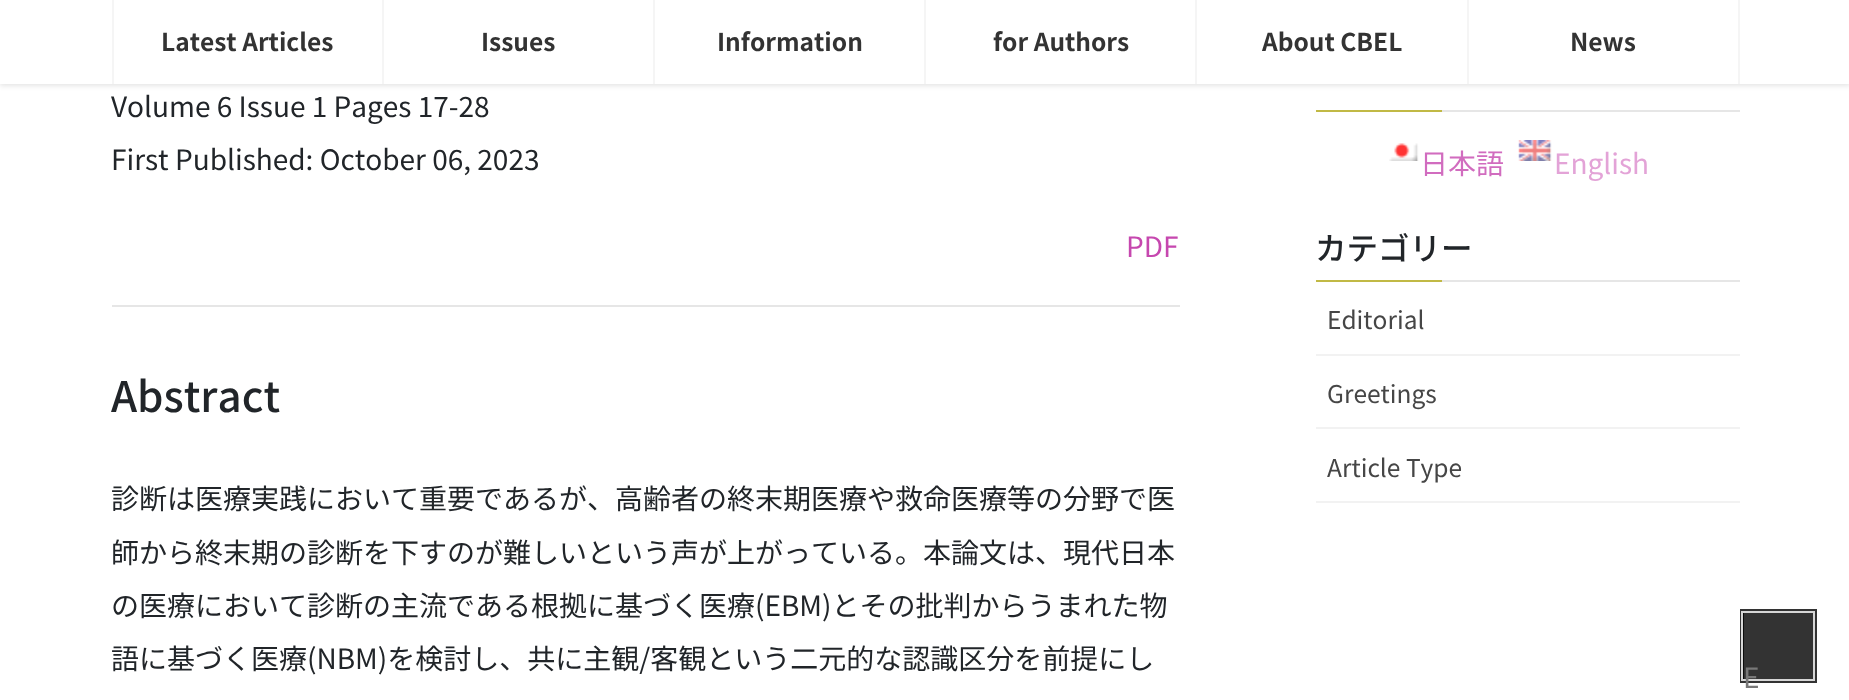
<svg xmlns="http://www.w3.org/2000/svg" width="1849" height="700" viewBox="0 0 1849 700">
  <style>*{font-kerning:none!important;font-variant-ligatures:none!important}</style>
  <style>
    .t1 { font: bold 24.5px Noto Sans JP; fill: #333; }
    .t2 { font: 28px Noto Sans JP; fill: #212529; }
    .t3 { font: 28px Noto Sans JP; fill: #c647af; }
    .t4 { font: 500 42px Noto Sans JP; fill: #212529; }
    .t5 { font: 28px Noto Sans JP; fill: #d16cbf; }
    .t6 { font: 28px Noto Sans JP; fill: #e3a3d7; }
    .t7 { font: 500 31.5px Noto Sans JP; fill: #212529; }
    .t8 { font: 24.5px Noto Sans JP; fill: #464646; }
    .t9 { font: 28px Noto Sans JP; fill: #787878; }
  </style>
  <rect width="100%" height="100%" fill="#fff"/>
  <rect x="0" y="2" width="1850" height="84" fill="#0000001a" filter="blur(2.5px)"/>
  <rect x="0" y="0" width="1849" height="84" fill="#fff"/>
  <rect x="112" y="0" width="2" height="84" fill="#f5f5f5"/>
  <text x="161" y="51" class="t1">Latest Articles</text>
  <rect x="382" y="0" width="2" height="84" fill="#f5f5f5"/>
  <text x="481" y="51" class="t1">Issues</text>
  <rect x="653" y="0" width="2" height="84" fill="#f5f5f5"/>
  <text x="717" y="51" class="t1">Information</text>
  <rect x="924" y="0" width="2" height="84" fill="#f5f5f5"/>
  <text x="993" y="51" class="t1">for Authors</text>
  <rect x="1195" y="0" width="2" height="84" fill="#f5f5f5"/>
  <text x="1262" y="51" class="t1">About CBEL</text>
  <rect x="1738" y="0" width="2" height="84" fill="#f5f5f5"/>
  <rect x="1467" y="0" width="2" height="84" fill="#f5f5f5"/>
  <text x="1570" y="51" class="t1">News</text>
  <text x="111" y="117" class="t2">Volume 6 Issue 1 Pages 17-28</text>
  <text x="111" y="170" class="t2">First Published: October 06, 2023</text>
  <text x="1126" y="257" class="t3">PDF</text>
  <rect x="112" y="305" width="1068" height="2" fill="#e6e6e6"/>
  <text x="111" y="412" class="t4">Abstract</text>
  <text x="111" y="509" class="t2">診断は医療実践において重要であるが、高齢者の終末期医療や救命医療等の分野で医</text>
  <text x="111" y="563" class="t2">師から終末期の診断を下すのが難しいという声が上がっている。本論文は、現代日本</text>
  <text x="111" y="616" class="t2">の医療において診断の主流である根拠に基づく医療(EBM)とその批判からうまれた物</text>
  <text x="111" y="669" class="t2">語に基づく医療(NBM)を検討し、共に主観/客観という二元的な認識区分を前提にし</text>
  <rect x="1442" y="110" width="298" height="2" fill="#e6e6e6"/>
  <rect x="1316" y="110" width="126" height="2" fill="#c1b945"/>
  <image x="1389" y="143" width="30" height="18" href="images/1.png"/>
  <text x="1420" y="174" class="t5">日本語</text>
  <image x="1518" y="140" width="34" height="21" href="images/2.png"/>
  <text x="1554" y="174" class="t6">English</text>
  <rect x="1442" y="280" width="298" height="2" fill="#e6e6e6"/>
  <text x="1315" y="260" class="t7">カテゴリー</text>
  <rect x="1316" y="280" width="126" height="2" fill="#c1b945"/>
  <rect x="1316" y="354" width="424" height="2" fill="#f2f2f2"/>
  <text x="1327" y="329" class="t8">Editorial</text>
  <rect x="1316" y="427" width="424" height="2" fill="#f2f2f2"/>
  <text x="1327" y="403" class="t8">Greetings</text>
  <rect x="1316" y="501" width="424" height="2" fill="#f2f2f2"/>
  <text x="1327" y="477" class="t8">Article Type</text>
  <rect x="1742" y="611" width="73" height="70" fill="none" stroke="#333" stroke-width="4"/>
  <rect x="1742" y="612" width="72" height="68" fill="none" stroke="#d6d6d6" stroke-width="2"/>
  <rect x="1743" y="613" width="70" height="66" fill="#000000cc"/>
  <text x="1743" y="688" class="t9">E</text>
</svg>
